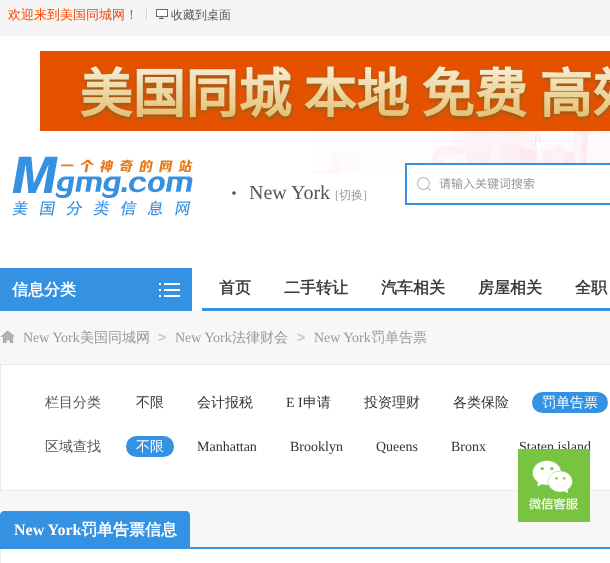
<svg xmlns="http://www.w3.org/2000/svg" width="610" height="563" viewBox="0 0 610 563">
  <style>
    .t1 { font: 500 13px WenQuanYi Zen Hei; fill: #ff4500; }
    .t2 { font: 500 12px WenQuanYi Zen Hei; fill: #555; }
    .t3 { font: 12px Noto Sans CJK SC; fill: #999; }
    .t4 { font: 30px Liberation Serif; fill: #555; }
    .t5 { font: 20px Liberation Serif; fill: #555; }
    .t6 { font: 12px Liberation Serif; fill: #999; }
    .t7 { font: 500 12px WenQuanYi Zen Hei; fill: #999; }
    .t8 { font: bold 16px WenQuanYi Zen Hei; fill: #fff; }
    .t9 { font: bold 16px WenQuanYi Zen Hei; fill: #3d3d3d; }
    .t10 { font: 14px Liberation Serif; fill: #999; }
    .t11 { font: 500 14px WenQuanYi Zen Hei; fill: #999; }
    .t12 { font: bold 14px Liberation Sans; fill: #cacaca; }
    .t13 { font: 500 14px WenQuanYi Zen Hei; fill: #555; }
    .t14 { font: 500 14px WenQuanYi Zen Hei; fill: #333; }
    .t15 { font: 14px Liberation Serif; fill: #333; }
    .t16 { font: 500 14px WenQuanYi Zen Hei; fill: #fff; }
    .t17 { font: bold 16px Liberation Serif; fill: #fff; }
  </style>
  <rect width="100%" height="100%" fill="#fff"/>
  <image x="315" y="131" width="295" height="42" href="images/1.png"/>
  <rect x="0" y="0" width="610" height="36" fill="#f5f5f5"/>
  <text x="8" y="19" class="t1">欢迎来到美国同城网！</text>
  <rect x="147" y="9" width="1" height="10" fill="#fff"/>
  <rect x="146" y="9" width="1" height="10" fill="#d4d4d4"/>
  <image x="156" y="9" width="12" height="10" href="images/2.png"/>
  <text x="171" y="19" class="t2">收藏到桌面</text>
  <image x="40" y="51" width="570" height="80" href="images/3.png"/>
  <image x="12" y="156" width="181" height="60" href="images/4.png"/>
  <rect x="407" y="165" width="203" height="8" fill="#fff"/>
  <image x="417" y="177" width="14" height="14" href="images/5.png"/>
  <rect x="406" y="164" width="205" height="40" fill="none" stroke="#3592e2" stroke-width="2"/>
  <text x="439" y="188" class="t3">请输入关键词搜索</text>
  <text x="229" y="203" class="t4">·</text>
  <text x="249" y="199" class="t5">New York</text>
  <text x="335" y="199" class="t6">[</text>
  <text x="339" y="199" class="t7">切换</text>
  <text x="363" y="199" class="t6">]</text>
  <rect x="1" y="269" width="190" height="41" fill="none" stroke="#3592e2" stroke-width="2"/>
  <rect x="2" y="270" width="188" height="39" fill="#3592e2"/>
  <image x="159" y="283" width="21" height="14" href="images/6.png"/>
  <text x="12" y="295" class="t8">信息分类</text>
  <rect x="202" y="308" width="408" height="3" fill="#3592e2"/>
  <text x="219" y="293" class="t9">首页</text>
  <text x="284" y="293" class="t9">二手转让</text>
  <text x="381" y="293" class="t9">汽车相关</text>
  <text x="478" y="293" class="t9">房屋相关</text>
  <text x="575" y="293" class="t9">全职</text>
  <rect x="0" y="311" width="610" height="236" fill="#f7f7f7"/>
  <image x="0" y="330" width="15" height="13" href="images/7.png"/>
  <text x="23" y="342" class="t10">New York</text>
  <text x="80" y="342" class="t11">美国同城网</text>
  <text x="158" y="342" class="t12">&gt;</text>
  <text x="175" y="342" class="t10">New York</text>
  <text x="232" y="342" class="t11">法律财会</text>
  <text x="297" y="342" class="t12">&gt;</text>
  <text x="314" y="342" class="t10">New York</text>
  <text x="371" y="342" class="t11">罚单告票</text>
  <rect x="0.5" y="364.5" width="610" height="126" fill="#fff" stroke="#e9e9e9"/>
  <text x="45" y="407" class="t13">栏目分类</text>
  <text x="136" y="407" class="t14">不限</text>
  <text x="197" y="407" class="t14">会计报税</text>
  <text x="286" y="407" class="t15">E I</text>
  <text x="303" y="407" class="t14">申请</text>
  <text x="364" y="407" class="t14">投资理财</text>
  <text x="453" y="407" class="t14">各类保险</text>
  <rect x="532" y="392" width="76" height="21" rx="10.5" fill="#3592e2"/>
  <text x="542" y="407" class="t16">罚单告票</text>
  <text x="45" y="451" class="t13">区域查找</text>
  <rect x="126" y="436" width="48" height="21" rx="10.5" fill="#3592e2"/>
  <text x="136" y="451" class="t16">不限</text>
  <text x="197" y="451" class="t15">Manhattan</text>
  <text x="290" y="451" class="t15">Brooklyn</text>
  <text x="376" y="451" class="t15">Queens</text>
  <text x="451" y="451" class="t15">Bronx</text>
  <text x="519" y="451" class="t15">Staten island</text>
  <rect x="518" y="449" width="72" height="73" fill="#78c340"/>
  <image x="529" y="460" width="49" height="50" href="images/8.png"/>
  <rect x="190" y="547" width="420" height="2" fill="#3592e2"/>
  <path d="M4 511H186C188 511 190 513 190 515V549H0V515C0 513 2 511 4 511Z" fill="#3592e2"/>
  <text x="14" y="535" class="t17">New York</text>
  <text x="81" y="535" class="t8">罚单告票信息</text>
  <rect x="0" y="549" width="1" height="14" fill="#eee"/>
</svg>
